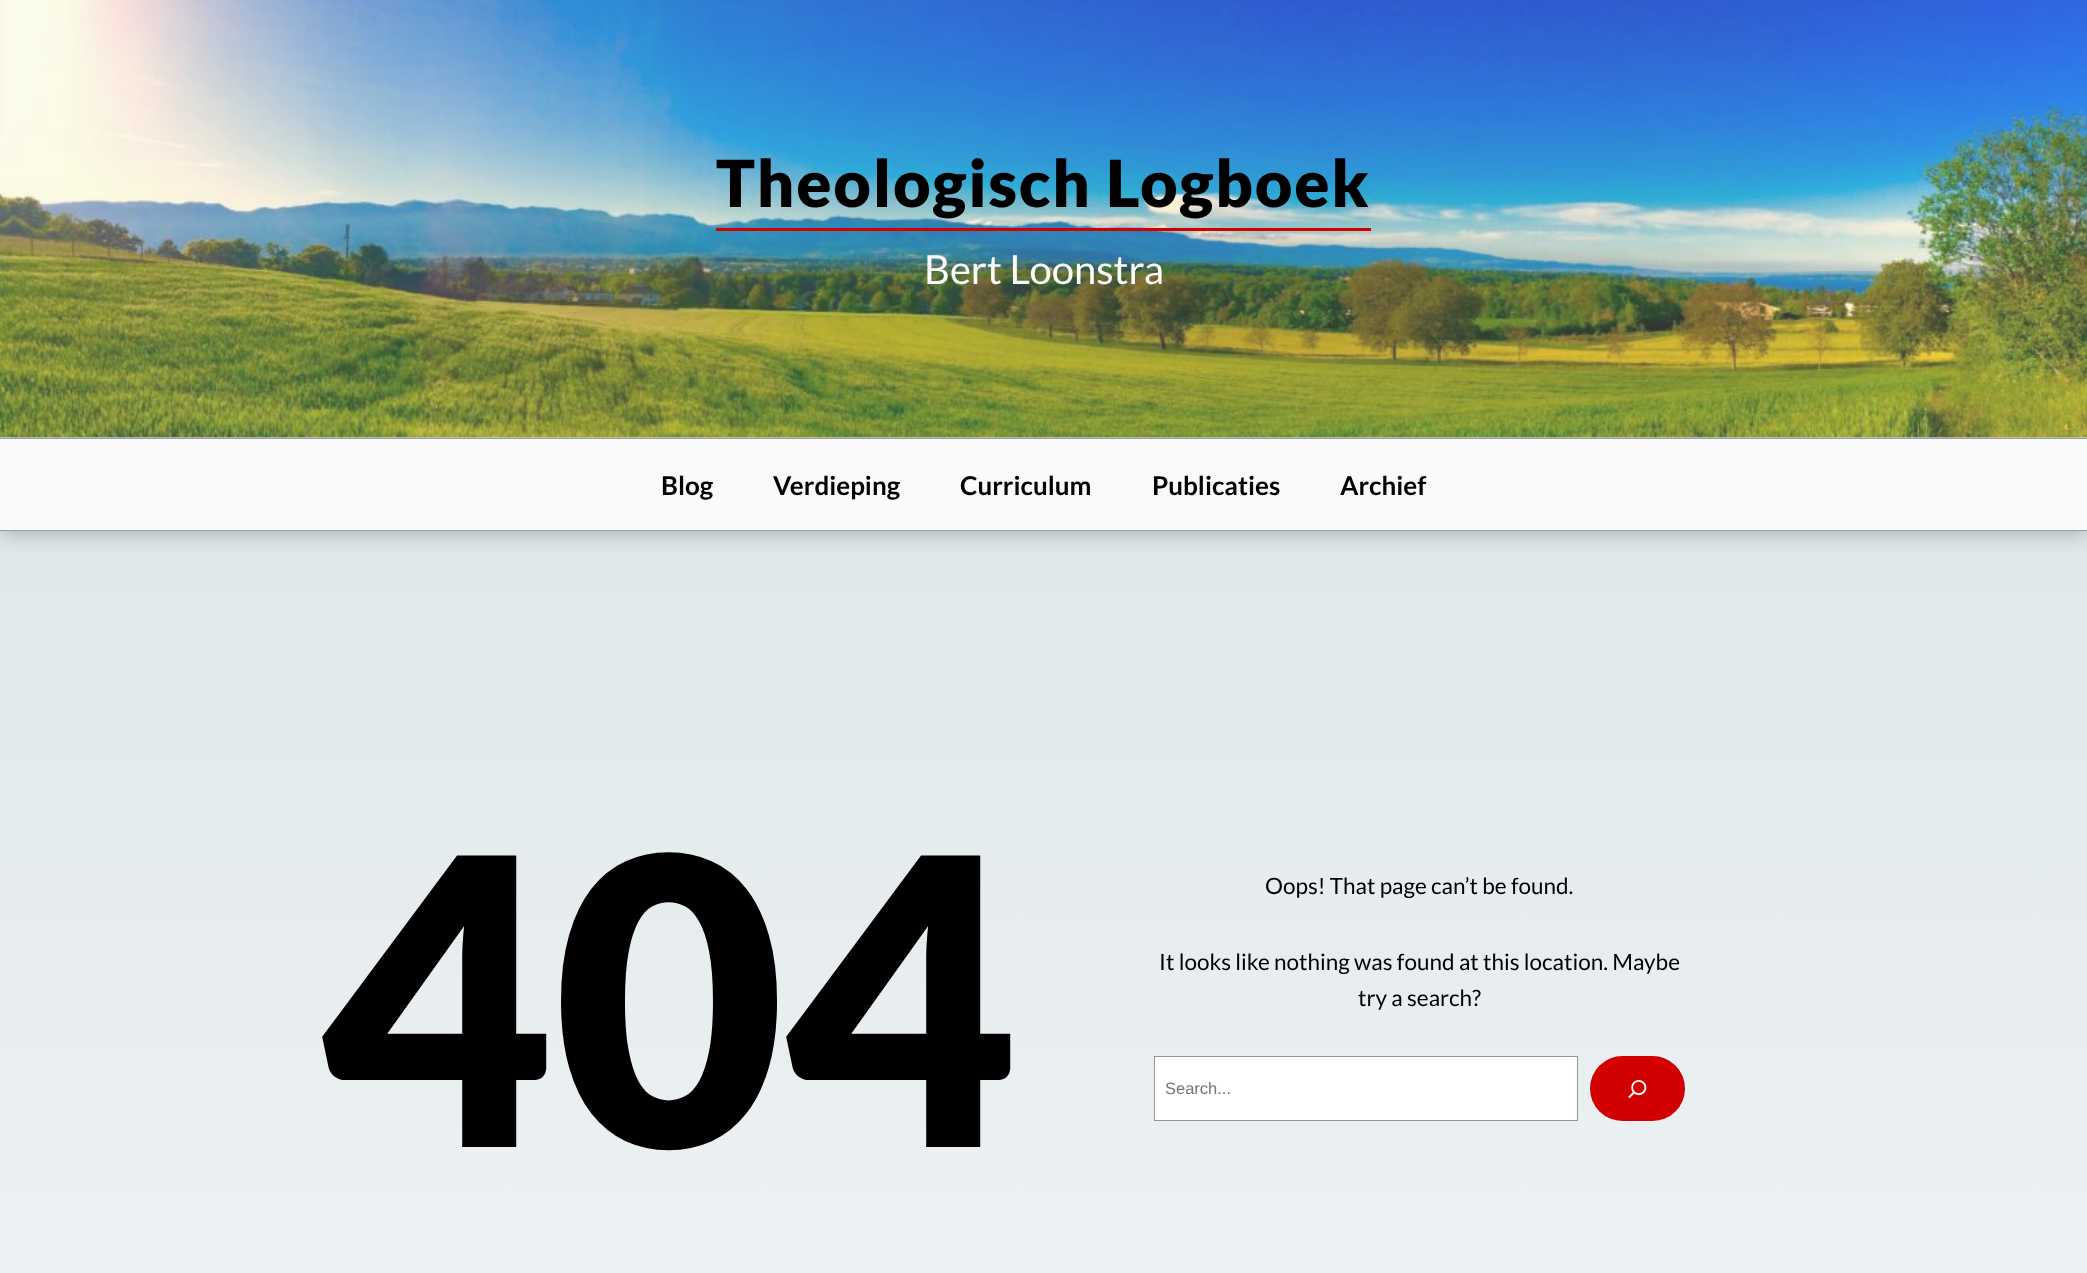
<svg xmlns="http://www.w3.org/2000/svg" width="2087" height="1273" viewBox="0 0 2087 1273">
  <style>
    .t1 { font: 900 65px Lato; letter-spacing: 1.75px; fill: #000; }
    .t2 { font: 40px Lato; fill: #fafafa; }
    .t3 { font: bold 26px Lato; fill: #000; }
    .t4 { font: 900 400px Lato; fill: #000; }
    .t5 { font: 22.5px Lato; fill: #000; }
    .t6 { font: 16.5px Liberation Sans; fill: #757575; }
  </style>
  <defs>
    <linearGradient id="g1" gradientUnits="userSpaceOnUse" x1="1044" y1="0" x2="1044" y2="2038"><stop offset="0" stop-color="#d7e2e6"/><stop offset="1" stop-color="#fafafa"/></linearGradient>
  </defs>
  <rect width="100%" height="100%" fill="#fff"/>
  <rect x="0" y="437" width="2087" height="836" fill="url(#g1)"/>
  <rect x="0" y="438" width="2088" height="93" fill="#0000004d" filter="blur(12.5px)"/>
  <image x="0" y="0" width="2087" height="438" href="images/1.png"/>
  <rect x="0" y="0" width="2087" height="438" fill="#ededed33"/>
  <rect x="716" y="228" width="655" height="3" fill="#d20000"/>
  <text x="716" y="207" class="t1">Theologisch Logboek</text>
  <text x="924" y="284" class="t2">Bert Loonstra</text>
  <rect x="0" y="439" width="2087" height="91" fill="#fafafa"/>
  <rect x="0" y="438" width="2087" height="1" fill="#9d9d9d"/>
  <rect x="0" y="530" width="2087" height="1" fill="#9d9d9d"/>
  <text x="661" y="495" class="t3">Blog</text>
  <text x="773" y="495" class="t3">Verdieping</text>
  <text x="960" y="495" class="t3">Curriculum</text>
  <text x="1152" y="495" class="t3">Publicaties</text>
  <text x="1340" y="495" class="t3">Archief</text>
  <text x="321" y="1147" class="t4">404</text>
  <text x="1265" y="894" class="t5">Oops! That page can’t be found.</text>
  <text x="1159" y="970" class="t5">It looks like nothing was found at this location. Maybe</text>
  <text x="1358" y="1006" class="t5">try a search?</text>
  <rect x="1154.5" y="1056.5" width="423" height="64" fill="#fff" stroke="#949494"/>
  <text x="1165" y="1094" class="t6">Search...</text>
  <rect x="1590" y="1056" width="95" height="65" rx="32.5" fill="#d20000"/>
  <image x="1628" y="1080" width="19" height="19" href="images/2.png"/>
</svg>
